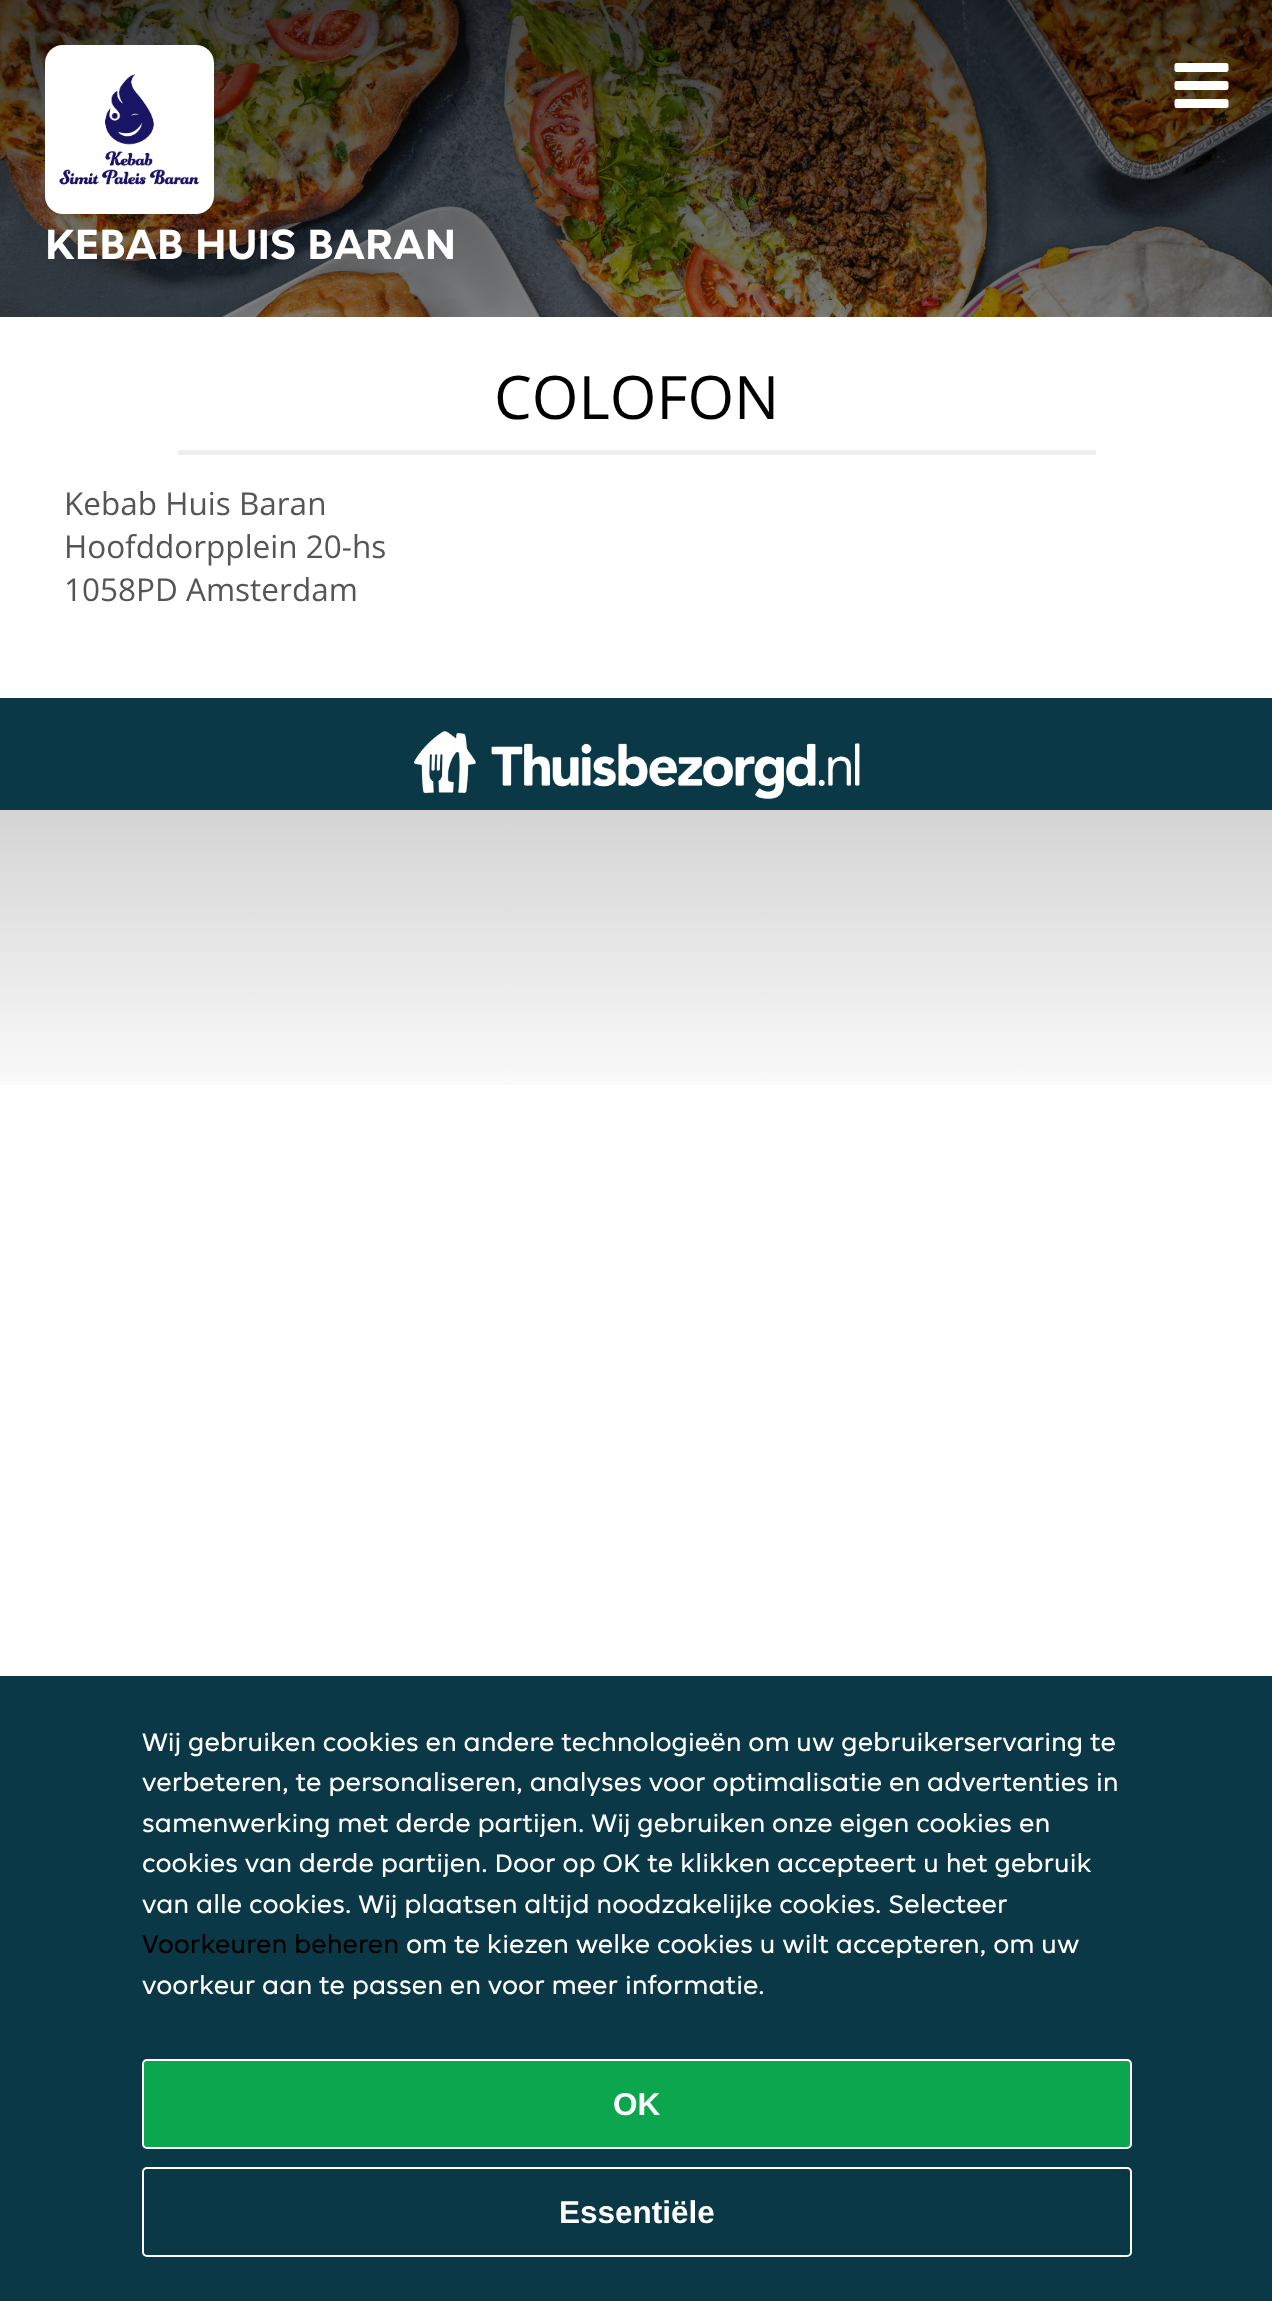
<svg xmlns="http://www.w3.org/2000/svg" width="1272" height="2301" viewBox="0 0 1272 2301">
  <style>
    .t1 { font: bold 45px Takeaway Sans; fill: #fff; }
    .t2 { font: 60px Open Sans; fill: #000; }
    .t3 { font: 31.5px Open Sans; fill: #555; }
    .t4 { font: 27px Takeaway Sans; fill: #fff; }
    .t5 { font: 27px Takeaway Sans; fill: #000; }
    .t6 { font: bold 31.5px Liberation Sans; fill: #fff; }
  </style>
  <defs>
    <linearGradient id="g1" gradientUnits="userSpaceOnUse" x1="637" y1="0" x2="637" y2="1125"><stop offset="0" stop-color="#000" stop-opacity="0.7"/><stop offset="0.33" stop-color="#000" stop-opacity="0.4"/><stop offset="0.67" stop-color="#000" stop-opacity="0.2"/><stop offset="1" stop-color="#000" stop-opacity="0"/></linearGradient>
  </defs>
  <rect width="100%" height="100%" fill="#fff"/>
  <image x="0" y="0" width="1272" height="317" href="images/1.png"/>
  <rect x="0" y="0" width="1272" height="1085" fill="url(#g1)"/>
  <image x="1174" y="63" width="55" height="45" href="images/2.png"/>
  <rect x="45" y="45" width="169" height="169" rx="18" fill="#fff"/>
  <image x="59" y="74" width="141" height="111" href="images/3.png"/>
  <text x="45" y="259" class="t1">KEBAB HUIS BARAN</text>
  <rect x="0" y="317" width="1272" height="381" fill="#fff"/>
  <text x="494" y="419" class="t2">COLOFON</text>
  <rect x="178" y="450" width="918" height="5" fill="#eee"/>
  <text x="64" y="515" class="t3">Kebab Huis Baran</text>
  <text x="64" y="558" class="t3">Hoofddorpplein 20-hs</text>
  <text x="64" y="601" class="t3">1058PD Amsterdam</text>
  <rect x="0" y="698" width="1272" height="112" fill="#0a3847"/>
  <image x="414" y="731" width="446" height="68" href="images/4.png"/>
  <rect x="0" y="1676" width="1272" height="625" fill="#0a3847"/>
  <text x="142" y="1751" class="t4">Wij gebruiken cookies en andere technologieën om uw gebruikerservaring te</text>
  <text x="142" y="1791" class="t4">verbeteren, te personaliseren, analyses voor optimalisatie en advertenties in</text>
  <text x="142" y="1832" class="t4">samenwerking met derde partijen. Wij gebruiken onze eigen cookies en</text>
  <text x="142" y="1872" class="t4">cookies van derde partijen. Door op OK te klikken accepteert u het gebruik</text>
  <text x="142" y="1913" class="t4">van alle cookies. Wij plaatsen altijd noodzakelijke cookies. Selecteer</text>
  <text x="142" y="1953" class="t5">Voorkeuren beheren</text>
  <text x="406" y="1953" class="t4">om te kiezen welke cookies u wilt accepteren, om uw</text>
  <text x="142" y="1994" class="t4">voorkeur aan te passen en voor meer informatie.</text>
  <rect x="143" y="2060" width="988" height="88" rx="4" fill="#0ca64f" stroke="#fff" stroke-width="2"/>
  <text x="613" y="2115" class="t6">OK</text>
  <rect x="143" y="2168" width="988" height="88" rx="4" fill="none" stroke="#fff" stroke-width="2"/>
  <text x="559" y="2223" class="t6">Essentiële</text>
</svg>
